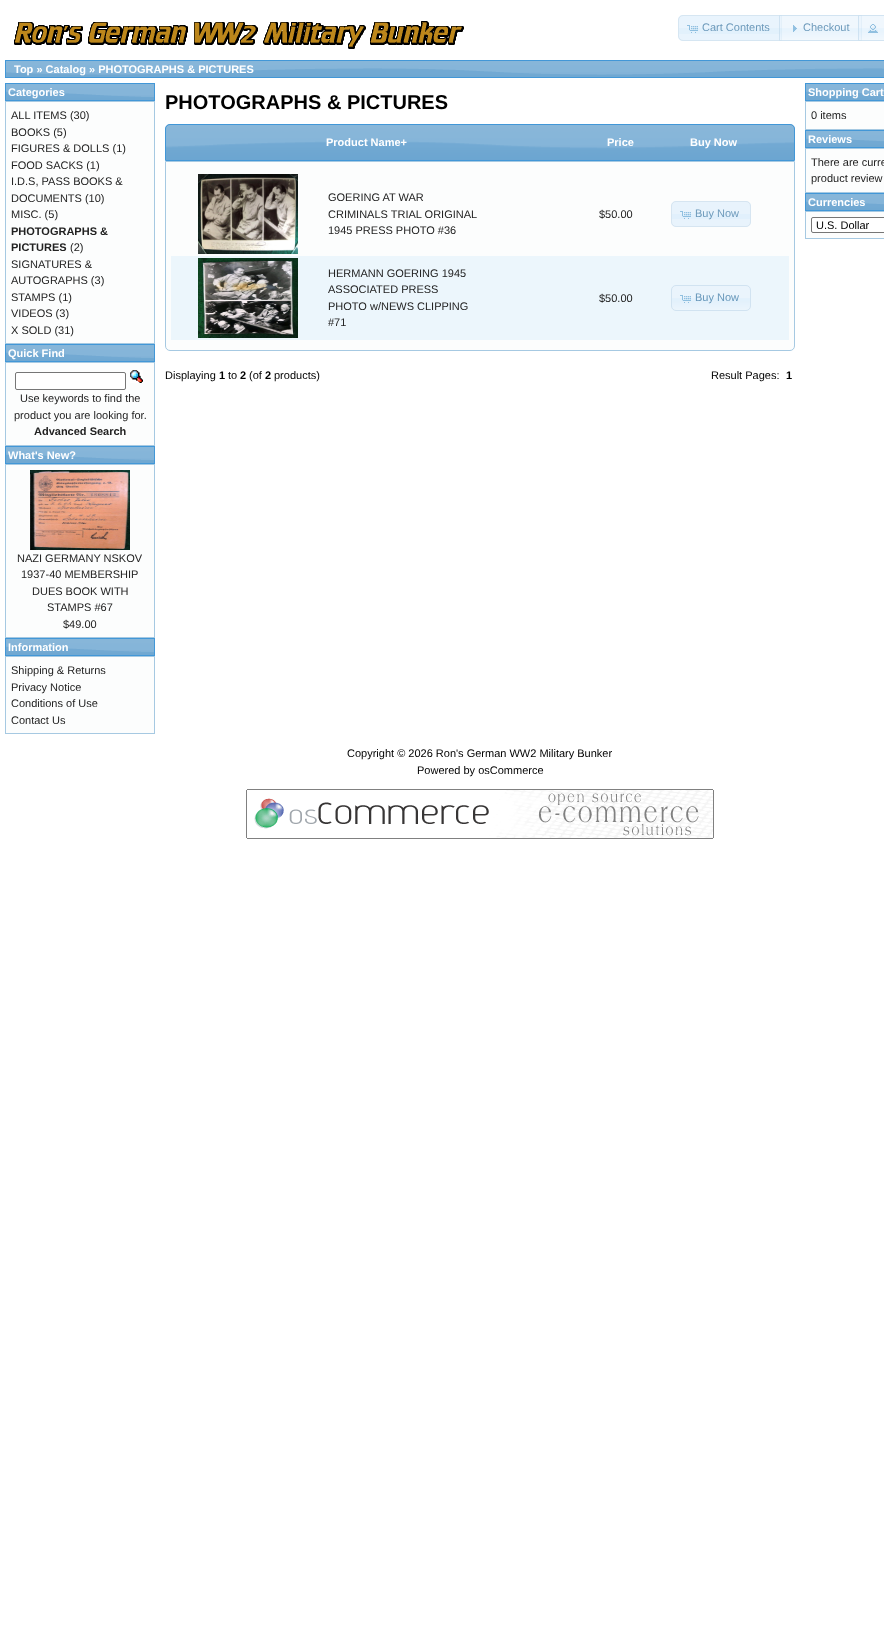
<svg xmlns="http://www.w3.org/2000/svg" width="884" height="1628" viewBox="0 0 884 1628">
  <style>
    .t1 { font: 11px Liberation Sans; fill: #6d9abb; }
    .t2 { font: bold 11px Liberation Sans; fill: #fff; }
    .t3 { font: 11px Liberation Sans; fill: #222; }
    .t4 { font: bold 11px Liberation Sans; fill: #222; }
    .t5 { font: bold 20px Liberation Sans; fill: #000; }
    .t6 { font: 11px Liberation Sans; fill: #6797ba; }
    .t7 { font: 11px Liberation Sans; fill: #000; }
    .t8 { font: bold 11px Liberation Sans; fill: #000; }
  </style>
  <rect width="100%" height="100%" fill="#fff"/>
  <image x="14" y="21" width="450" height="28" href="images/1.png"/>
  <path d="M683 15H782V41H683C680 41 678 39 678 36V20C678 17 680 15 683 15Z" fill="#e9f4fd"/>
  <rect x="678" y="28" width="104" height="6" fill="#e2f1fc"/>
  <path d="M683 15.5H781.5V40.5H683C680.5 40.5 678.5 38.5 678.5 36V20C678.5 17.5 680.5 15.5 683 15.5Z" fill="none" stroke="#d6e6f2"/>
  <image x="687" y="25" width="11" height="8" href="images/2.png"/>
  <text x="702" y="31" class="t1">Cart Contents</text>
  <image x="779" y="15" width="83" height="26" href="images/3.png"/>
  <rect x="779.5" y="15.5" width="82" height="25" fill="none" stroke="#c5dbecb3"/>
  <image x="793" y="25" width="4" height="7" href="images/4.png"/>
  <text x="803" y="31" class="t1">Checkout</text>
  <image x="858" y="15" width="26" height="26" href="images/5.png"/>
  <rect x="858.5" y="15.5" width="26" height="25" fill="none" stroke="#c5dbecb3"/>
  <image x="868" y="24" width="10" height="9" href="images/6.png"/>
  <image x="6" y="61" width="878" height="16" href="images/7.png"/>
  <rect x="5.5" y="60.5" width="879" height="17" fill="none" stroke="#4297d7"/>
  <text x="14" y="73" class="t2">Top » Catalog » PHOTOGRAPHS &amp; PICTURES</text>
  <image x="6" y="84" width="148" height="16" href="images/8.png"/>
  <rect x="5.5" y="83.5" width="149" height="17" fill="none" stroke="#4297d7"/>
  <text x="8" y="96" class="t2">Categories</text>
  <rect x="5.5" y="101.5" width="149" height="242" fill="#fcfdfd" stroke="#a6c9e2"/>
  <text x="11" y="119" class="t3">ALL ITEMS (30)</text>
  <text x="11" y="136" class="t3">BOOKS (5)</text>
  <text x="11" y="152" class="t3">FIGURES &amp; DOLLS (1)</text>
  <text x="11" y="169" class="t3">FOOD SACKS (1)</text>
  <text x="11" y="185" class="t3">I.D.S, PASS BOOKS &amp;</text>
  <text x="11" y="202" class="t3">DOCUMENTS (10)</text>
  <text x="11" y="218" class="t3">MISC. (5)</text>
  <text x="11" y="235" class="t4">PHOTOGRAPHS &amp;</text>
  <text x="11" y="251" class="t4">PICTURES</text>
  <text x="70" y="251" class="t3">(2)</text>
  <text x="11" y="268" class="t3">SIGNATURES &amp;</text>
  <text x="11" y="284" class="t3">AUTOGRAPHS (3)</text>
  <text x="11" y="301" class="t3">STAMPS (1)</text>
  <text x="11" y="317" class="t3">VIDEOS (3)</text>
  <text x="11" y="334" class="t3">X SOLD (31)</text>
  <image x="6" y="345" width="148" height="16" href="images/8.png"/>
  <rect x="5.5" y="344.5" width="149" height="17" fill="none" stroke="#4297d7"/>
  <text x="8" y="357" class="t2">Quick Find</text>
  <rect x="5.5" y="362.5" width="149" height="83" fill="#fcfdfd" stroke="#a6c9e2"/>
  <rect x="15.5" y="372.5" width="110" height="17" rx="1.5" fill="#fff" stroke="#767676"/>
  <image x="130" y="370" width="13" height="13" href="images/9.png"/>
  <text x="20" y="402" class="t3">Use keywords to find the</text>
  <text x="14" y="419" class="t3">product you are looking for.</text>
  <text x="34" y="435" class="t4">Advanced Search</text>
  <image x="6" y="447" width="148" height="16" href="images/8.png"/>
  <rect x="5.5" y="446.5" width="149" height="17" fill="none" stroke="#4297d7"/>
  <text x="8" y="459" class="t2">What's New?</text>
  <rect x="5.5" y="464.5" width="149" height="173" fill="#fcfdfd" stroke="#a6c9e2"/>
  <image x="30" y="470" width="100" height="80" href="images/10.png"/>
  <text x="17" y="562" class="t3">NAZI GERMANY NSKOV</text>
  <text x="21" y="578" class="t3">1937-40 MEMBERSHIP</text>
  <text x="32" y="595" class="t3">DUES BOOK WITH</text>
  <text x="47" y="611" class="t3">STAMPS #67</text>
  <text x="63" y="628" class="t3">$49.00</text>
  <image x="6" y="639" width="148" height="16" href="images/8.png"/>
  <rect x="5.5" y="638.5" width="149" height="17" fill="none" stroke="#4297d7"/>
  <text x="8" y="651" class="t2">Information</text>
  <rect x="5.5" y="656.5" width="149" height="77" fill="#fcfdfd" stroke="#a6c9e2"/>
  <text x="11" y="674" class="t3">Shipping &amp; Returns</text>
  <text x="11" y="691" class="t3">Privacy Notice</text>
  <text x="11" y="707" class="t3">Conditions of Use</text>
  <text x="11" y="724" class="t3">Contact Us</text>
  <text x="165" y="109" class="t5">PHOTOGRAPHS &amp; PICTURES</text>
  <image x="165" y="124" width="630" height="36" href="images/11.png"/>
  <path d="M170 124.5H790C792.5 124.5 794.5 126.5 794.5 129V160.5H165.5V129C165.5 126.5 167.5 124.5 170 124.5Z" fill="none" stroke="#4297d7"/>
  <text x="326" y="146" class="t2">Product Name+</text>
  <text x="607" y="146" class="t2">Price</text>
  <text x="690" y="146" class="t2">Buy Now</text>
  <path d="M165.5 161.5H794.5V346C794.5 348.5 792.5 350.5 790 350.5H170C167.5 350.5 165.5 348.5 165.5 346Z" fill="#fcfdfd" stroke="#a6c9e2"/>
  <image x="198" y="174" width="100" height="80" href="images/12.png"/>
  <text x="328" y="201" class="t3">GOERING AT WAR</text>
  <text x="328" y="218" class="t3">CRIMINALS TRIAL ORIGINAL</text>
  <text x="328" y="234" class="t3">1945 PRESS PHOTO #36</text>
  <text x="599" y="218" class="t3">$50.00</text>
  <rect x="671" y="201" width="80" height="26" rx="5" fill="#e8f3fc"/>
  <rect x="671" y="214" width="80" height="5" fill="#e1f0fc"/>
  <rect x="671.5" y="201.5" width="79" height="25" rx="4.5" fill="none" stroke="#d6e5f1"/>
  <image x="680" y="211" width="11" height="8" href="images/13.png"/>
  <text x="695" y="217" class="t1">Buy Now</text>
  <rect x="171" y="256" width="618" height="84" fill="#ecf6fc"/>
  <image x="198" y="258" width="100" height="80" href="images/14.png"/>
  <text x="328" y="277" class="t3">HERMANN GOERING 1945</text>
  <text x="328" y="293" class="t3">ASSOCIATED PRESS</text>
  <text x="328" y="310" class="t3">PHOTO w/NEWS CLIPPING</text>
  <text x="328" y="326" class="t3">#71</text>
  <text x="599" y="302" class="t3">$50.00</text>
  <image x="671" y="285" width="80" height="26" href="images/15.png"/>
  <rect x="671.5" y="285.5" width="79" height="25" rx="4.5" fill="none" stroke="#d1e3f1"/>
  <image x="680" y="295" width="11" height="8" href="images/16.png"/>
  <text x="695" y="301" class="t6">Buy Now</text>
  <text x="165" y="379" class="t7">Displaying</text>
  <text x="219" y="379" class="t8">1</text>
  <text x="228" y="379" class="t7">to</text>
  <text x="240" y="379" class="t8">2</text>
  <text x="249" y="379" class="t7">(of</text>
  <text x="265" y="379" class="t8">2</text>
  <text x="274" y="379" class="t7">products)</text>
  <text x="711" y="379" class="t7">Result Pages:</text>
  <text x="786" y="379" class="t8">1</text>
  <image x="806" y="84" width="78" height="16" href="images/17.png"/>
  <rect x="805.5" y="83.5" width="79" height="17" fill="none" stroke="#4297d7"/>
  <text x="808" y="96" class="t2">Shopping Cart</text>
  <rect x="805.5" y="101.5" width="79" height="28" fill="#fcfdfd" stroke="#a6c9e2"/>
  <text x="811" y="119" class="t3">0 items</text>
  <image x="806" y="131" width="78" height="16" href="images/17.png"/>
  <rect x="805.5" y="130.5" width="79" height="17" fill="none" stroke="#4297d7"/>
  <text x="808" y="143" class="t2">Reviews</text>
  <rect x="805.5" y="148.5" width="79" height="44" fill="#fcfdfd" stroke="#a6c9e2"/>
  <text x="811" y="166" class="t3">There are curre</text>
  <text x="811" y="182" class="t3">product review</text>
  <image x="806" y="194" width="78" height="16" href="images/17.png"/>
  <rect x="805.5" y="193.5" width="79" height="17" fill="none" stroke="#4297d7"/>
  <text x="808" y="206" class="t2">Currencies</text>
  <rect x="805.5" y="211.5" width="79" height="27" fill="#fcfdfd" stroke="#a6c9e2"/>
  <rect x="811.5" y="217.5" width="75" height="15" rx="1.5" fill="#fff" stroke="#767676"/>
  <text x="816" y="229" class="t7">U.S. Dollar</text>
  <text x="347" y="757" class="t7">Copyright © 2026 Ron's German WW2 Military Bunker</text>
  <text x="417" y="774" class="t7">Powered by osCommerce</text>
  <image x="246" y="789" width="468" height="50" href="images/18.png"/>
</svg>
